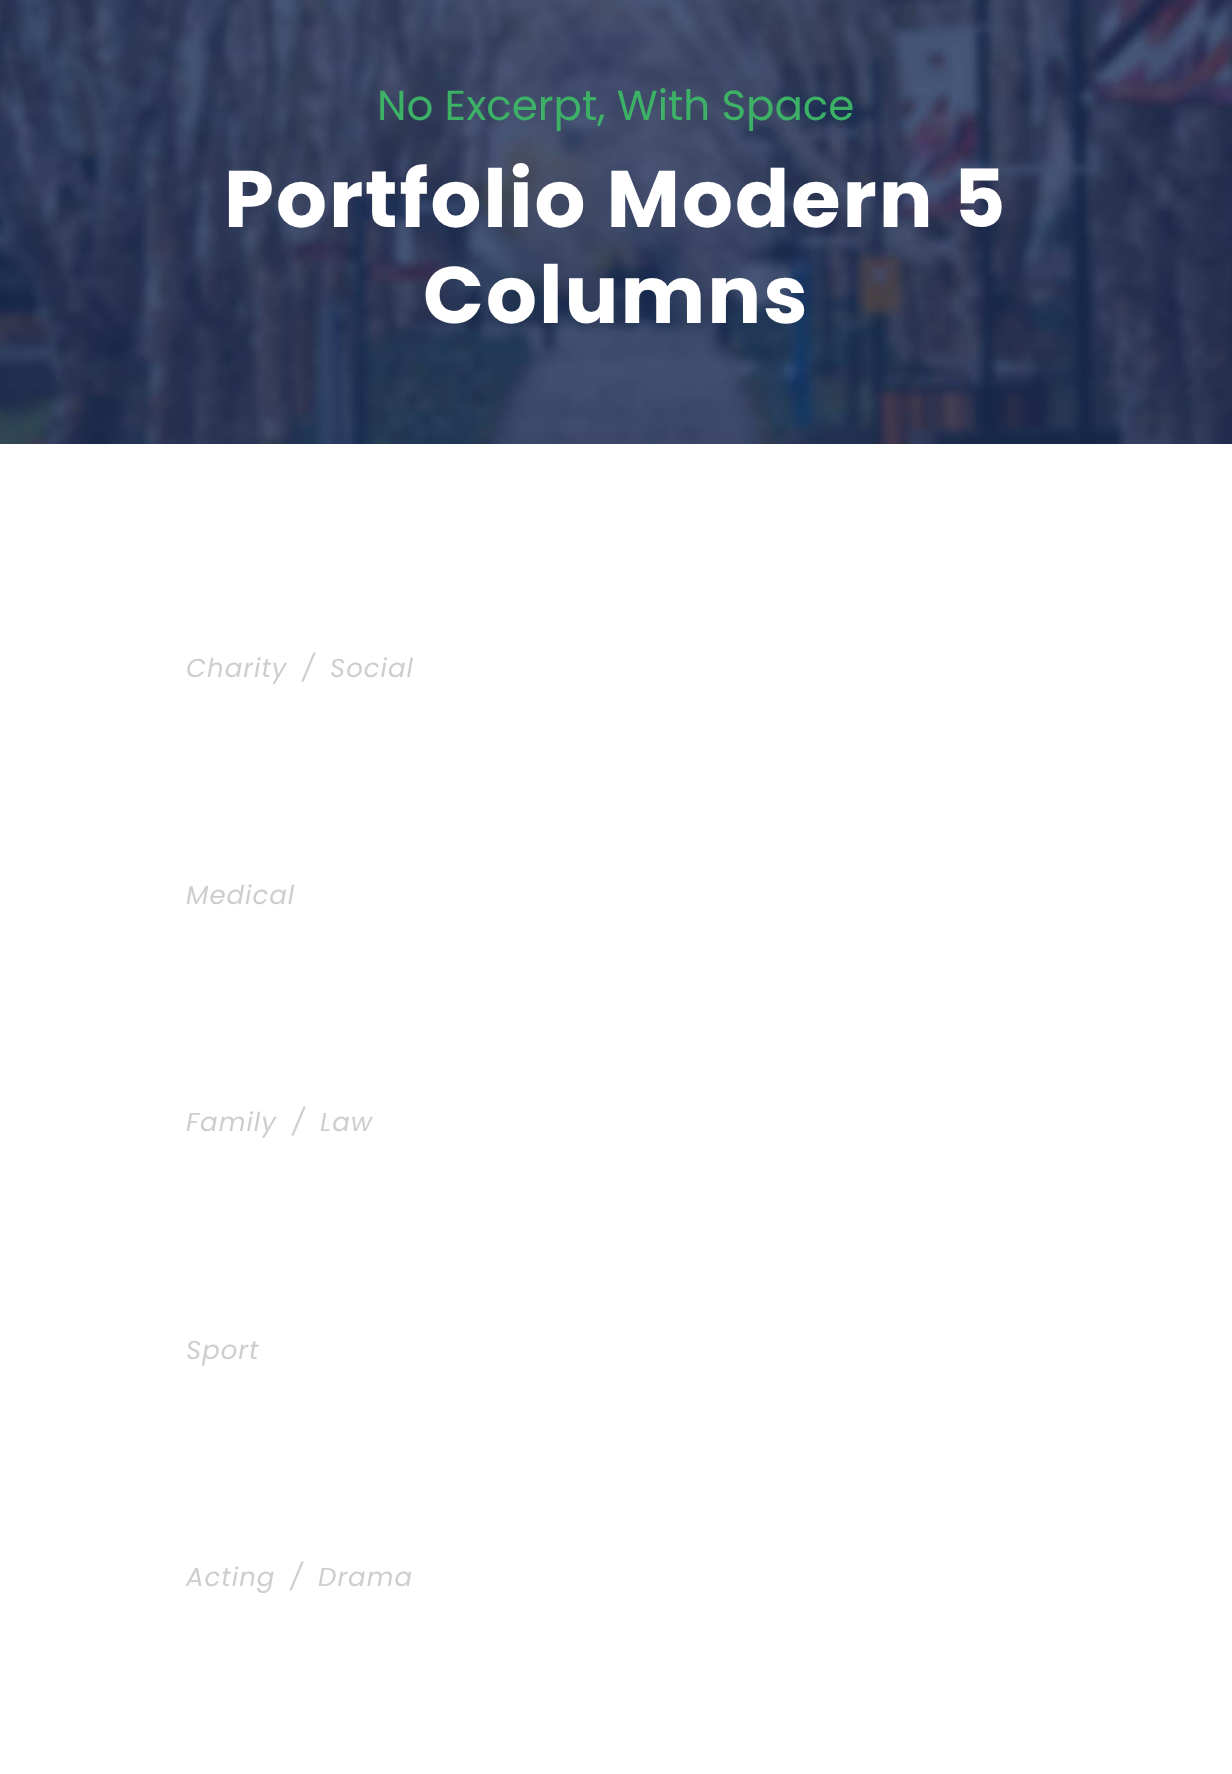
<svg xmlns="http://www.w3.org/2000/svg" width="1232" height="1774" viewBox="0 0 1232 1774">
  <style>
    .t1 { font: 42px Poppins; fill: #3db166; }
    .t2 { font: bold 80px Poppins; letter-spacing: 2px; fill: #fff; }
    .t3 { font: italic 26px Poppins; letter-spacing: 1px; fill: #cecece; }
  </style>
  <rect width="100%" height="100%" fill="#fff"/>
  <image x="0" y="0" width="1232" height="444" href="images/1.png"/>
  <text x="377" y="120" class="t1">No Excerpt, With Space</text>
  <text x="224" y="227" class="t2">Portfolio Modern 5</text>
  <text x="423" y="323" class="t2">Columns</text>
  <text x="186" y="677" class="t3">Charity</text>
  <text x="302" y="677" class="t3">/</text>
  <text x="330" y="677" class="t3">Social</text>
  <text x="186" y="904" class="t3">Medical</text>
  <text x="186" y="1131" class="t3">Family</text>
  <text x="292" y="1131" class="t3">/</text>
  <text x="320" y="1131" class="t3">Law</text>
  <text x="186" y="1359" class="t3">Sport</text>
  <text x="186" y="1586" class="t3">Acting</text>
  <text x="290" y="1586" class="t3">/</text>
  <text x="318" y="1586" class="t3">Drama</text>
</svg>
